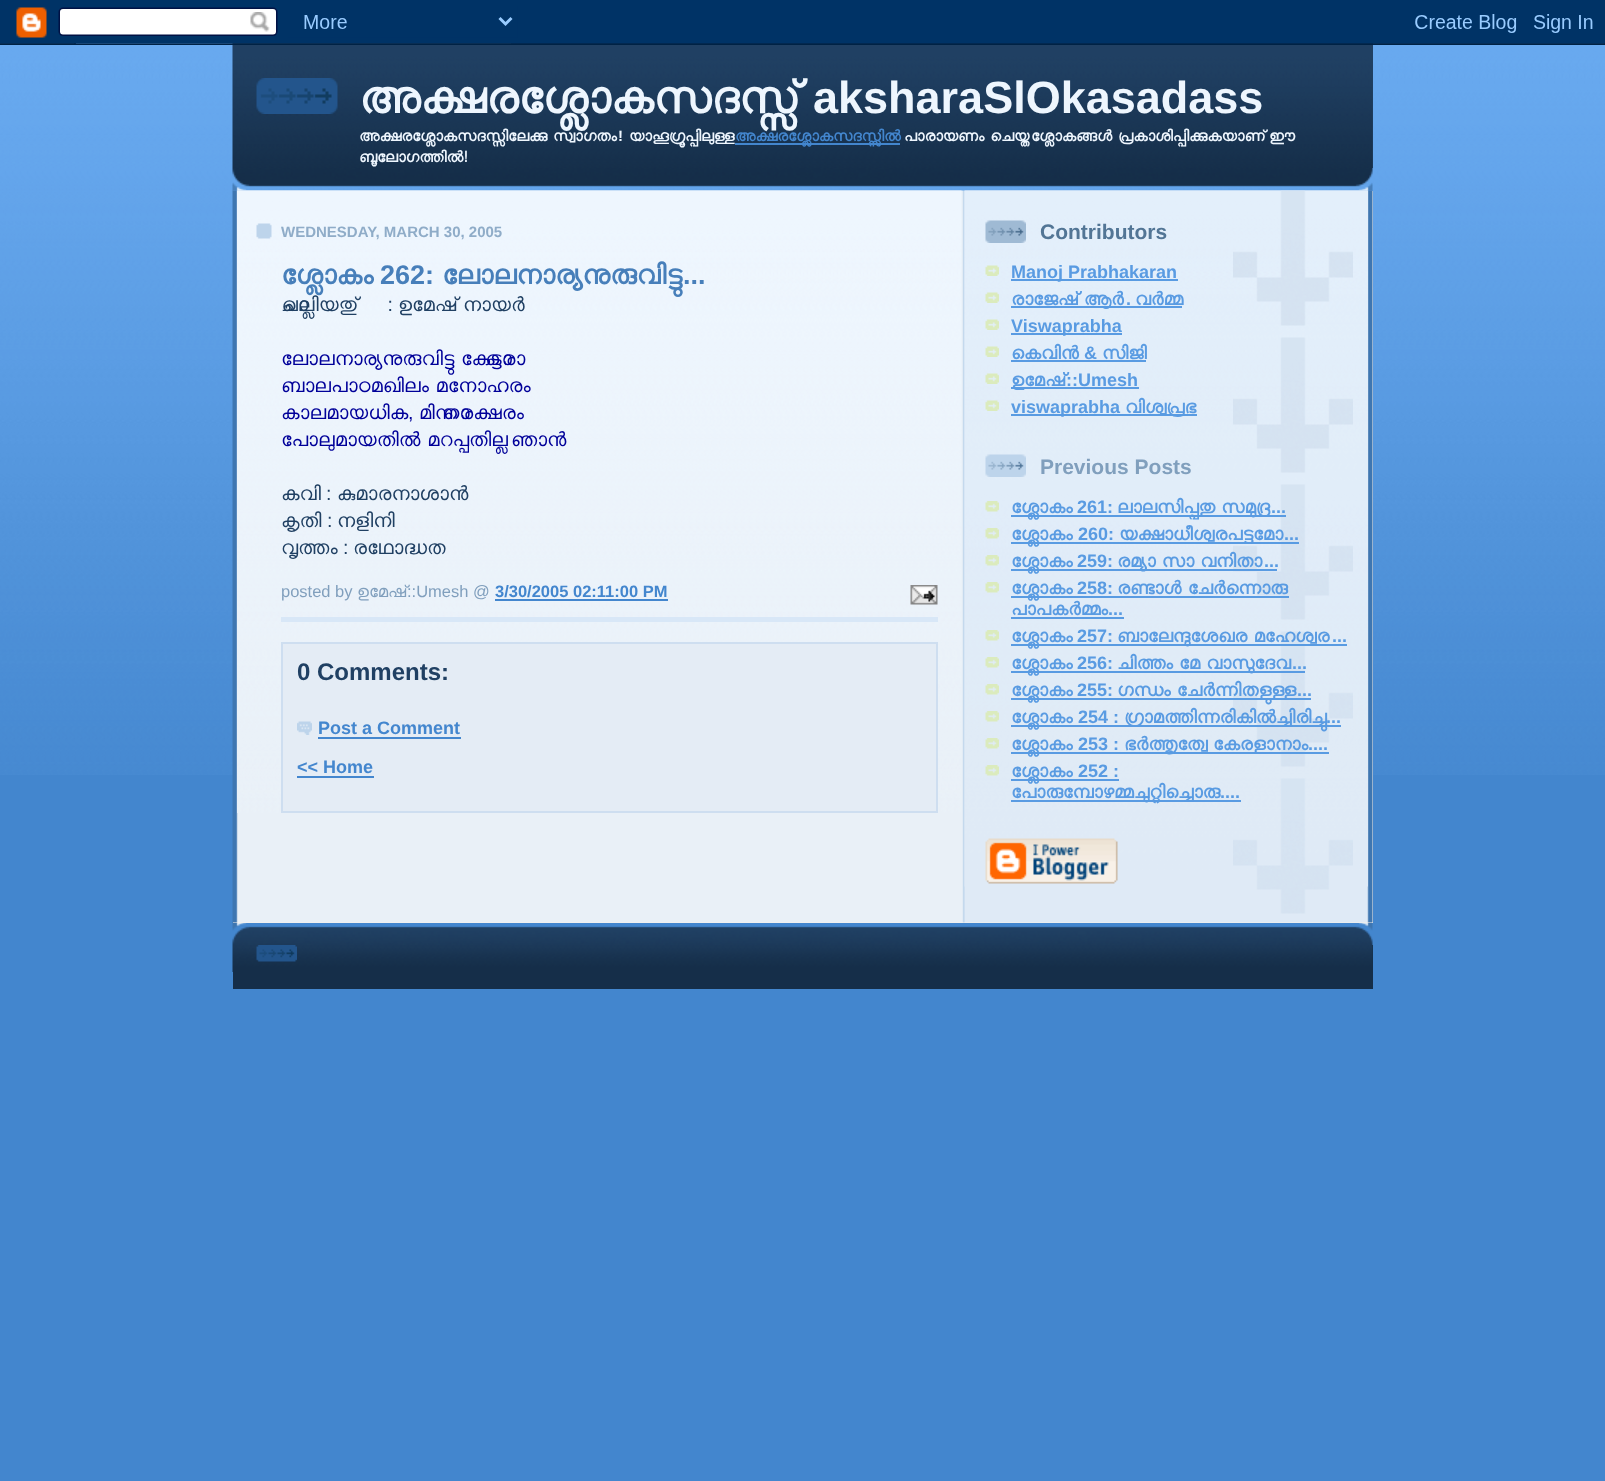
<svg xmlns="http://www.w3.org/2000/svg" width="1605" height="1481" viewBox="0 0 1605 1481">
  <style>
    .t1 { font: bold 45px FreeSans; fill: #eef6fe; }
    .t2 { font: bold 45px Liberation Sans; fill: #eef6fe; }
    .t3 { font: bold 15px FreeSans; fill: #eef6fe; }
    .t4 { font: bold 15px Liberation Sans; fill: #eef6fe; }
    .t5 { font: bold 15px FreeSans; fill: #4386ce; }
    .t6 { font: bold 15px Liberation Sans; fill: #8facc8; }
    .t7 { font: bold 27px FreeSans; fill: #477fba; }
    .t8 { font: bold 27px Liberation Sans; fill: #477fba; }
    .t9 { font: 19.5px FreeSans; fill: #204063; }
    .t10 { font: 19.5px Liberation Sans; fill: #204063; }
    .t11 { font: 19.5px FreeSans; fill: #009; }
    .t12 { font: 19.5px Liberation Sans; fill: #009; }
    .t13 { font: 16.5px Liberation Sans; fill: #809fbd; }
    .t14 { font: 16.5px FreeSans; fill: #809fbd; }
    .t15 { font: bold 16.5px Liberation Sans; fill: #4386ce; }
    .t16 { font: bold 24px Liberation Sans; fill: #204063; }
    .t17 { font: bold 18px Liberation Sans; fill: #4386ce; }
    .t18 { font: bold 21px Liberation Sans; fill: #527595; }
    .t19 { font: bold 18px Liberation Sans; fill: #599be2; }
    .t20 { font: bold 18px FreeSans; fill: #599be2; }
    .t21 { font: bold 21px Liberation Sans; fill: #809fbd; }
  </style>
  <rect width="100%" height="100%" fill="#4386ce"/>
  <image x="0" y="43" width="1605" height="732" href="images/1.png"/>
  <rect x="1372" y="43" width="1" height="125" fill="#204063"/>
  <image x="232" y="43" width="1141" height="125" href="images/4.png"/>
  <image x="0" y="0" width="1605" height="45" href="images/2.png"/>
  <image x="232" y="168" width="1141" height="23" href="images/3.png"/>
  <image x="256" y="78" width="82" height="36" href="images/5.png"/>
  <text x="359" y="113" class="t1">അക്ഷരശ്ലോകസദസ്സ്</text>
  <text x="813" y="113" class="t2">aksharaSlOkasadass</text>
  <text x="359" y="141" class="t3">അക്ഷരശ്ലോകസദസ്സിലേക്കു</text>
  <text x="553" y="141" class="t3">സ്വാഗതം</text>
  <text x="618" y="141" class="t4">!</text>
  <text x="629" y="141" class="t3">യാഹൂഗ്രൂപ്പിലുള്ള</text>
  <rect x="735" y="143" width="165" height="2" fill="#4386ce"/>
  <text x="735" y="141" class="t5">അക്ഷരശ്ലോകസദസ്സില്‍</text>
  <text x="904" y="141" class="t3">പാരായണം ചെയ്ത</text>
  <text x="1031" y="141" class="t3">ശ്ലോകങ്ങള്‍ പ്രകാശിപ്പിക്കുകയാണ്</text>
  <text x="1269" y="141" class="t3">ഈ</text>
  <text x="359" y="162" class="t3">ബൂലോഗത്തില്‍!</text>
  <image x="232" y="922" width="1141" height="23" href="images/32.png"/>
  <rect x="233" y="191" width="1140" height="732" fill="#f7f0e9"/>
  <image x="232" y="190" width="1141" height="733" href="images/6.png"/>
  <image x="237" y="190" width="725" height="623" href="images/7.png"/>
  <image x="256" y="223" width="16" height="16" href="images/8.png"/>
  <text x="281" y="237" class="t6">WEDNESDAY, MARCH 30, 2005</text>
  <rect x="281" y="617" width="657" height="5" fill="#d8e7f7"/>
  <text x="281" y="284" class="t7">ശ്ലോകം</text>
  <text x="380" y="284" class="t8">262:</text>
  <text x="442" y="284" class="t7">ലോലനാര്യനുരുവിട്ടു</text>
  <text x="683" y="284" class="t8">...</text>
  <text x="281" y="311" class="t9">ചൊല്ലിയതു്</text>
  <text x="382" y="311" class="t10">‌ :</text>
  <text x="398" y="311" class="t9">ഉമേഷ്</text>
  <text x="463" y="311" class="t9">നായര്‍</text>
  <text x="281" y="365" word-spacing="-1" class="t11">ലോലനാര്യനുരുവിട്ടു കേട്ടൊരാ</text>
  <text x="281" y="392" word-spacing="-1" class="t11">ബാലപാഠമഖിലം മനോഹരം</text>
  <text x="281" y="419" class="t11">കാലമായധിക</text>
  <text x="408" y="419" class="t12">,</text>
  <text x="419" y="419" class="t11">മിന്നൊരക്ഷരം</text>
  <text x="281" y="446" word-spacing="-1" class="t11">പോലുമായതില്‍ മറപ്പതില്ല</text>
  <text x="511" y="446" class="t11">ഞാന്‍</text>
  <text x="281" y="500" class="t9">കവി</text>
  <text x="326" y="500" class="t10">:</text>
  <text x="337" y="500" class="t9">കുമാരനാശാന്‍</text>
  <text x="281" y="527" class="t9">കൃതി</text>
  <text x="327" y="527" class="t10">:</text>
  <text x="337" y="527" class="t9">നളിനി</text>
  <text x="281" y="554" class="t9">വൃത്തം</text>
  <text x="343" y="554" class="t10">:</text>
  <text x="353" y="554" class="t9">രഥോദ്ധത</text>
  <text x="281" y="597" class="t13">posted by</text>
  <text x="357" y="597" class="t14">ഉമേഷ്</text>
  <text x="407" y="597" class="t13">::Umesh @</text>
  <text x="495" y="597" class="t15">3/30/2005 02:11:00 PM</text>
  <rect x="495" y="599" width="173" height="2" fill="#4386ce"/>
  <image x="910" y="585" width="28" height="20" href="images/9.png"/>
  <rect x="282" y="643" width="655" height="169" fill="#e4ecf5" stroke="#cedef0" stroke-width="2"/>
  <text x="297" y="680" class="t16">0 Comments:</text>
  <image x="297" y="721" width="15" height="14" href="images/10.png"/>
  <text x="318" y="734" class="t17">Post a Comment</text>
  <rect x="318" y="737" width="143" height="2" fill="#4386ce"/>
  <text x="297" y="773" class="t17">&lt;&lt; Home</text>
  <rect x="297" y="776" width="77" height="2" fill="#4386ce"/>
  <image x="964" y="190" width="404" height="697" href="images/11.png"/>
  <image x="1233" y="190" width="120" height="724" href="images/12.png"/>
  <image x="985" y="220" width="41" height="23" href="images/13.png"/>
  <text x="1040" y="239" class="t18">Contributors</text>
  <image x="985" y="265" width="14" height="11" href="images/14.png"/>
  <rect x="1011" y="279" width="167" height="2" fill="#599be2"/>
  <text x="1011" y="278" class="t19">Manoj Prabhakaran</text>
  <image x="985" y="292" width="14" height="11" href="images/15.png"/>
  <rect x="1011" y="306" width="171" height="2" fill="#599be2"/>
  <text x="1011" y="305" word-spacing="-1" class="t20">രാജേഷ് ആർ</text>
  <text x="1126" y="305" class="t19">.</text>
  <text x="1135" y="305" class="t20">വർമ്മ</text>
  <image x="985" y="319" width="14" height="11" href="images/16.png"/>
  <rect x="1011" y="333" width="111" height="2" fill="#599be2"/>
  <text x="1011" y="332" class="t19">Viswaprabha</text>
  <image x="985" y="346" width="14" height="11" href="images/17.png"/>
  <text x="1011" y="359" class="t20">കെവിൻ</text>
  <text x="1084" y="359" class="t19">&amp;</text>
  <rect x="1011" y="360" width="135" height="2" fill="#599be2"/>
  <text x="1102" y="359" class="t20">സിജി</text>
  <image x="985" y="373" width="14" height="11" href="images/18.png"/>
  <rect x="1011" y="387" width="128" height="2" fill="#599be2"/>
  <text x="1011" y="386" class="t20">ഉമേഷ്</text>
  <text x="1066" y="386" class="t19">::Umesh</text>
  <image x="985" y="400" width="14" height="11" href="images/19.png"/>
  <rect x="1011" y="414" width="186" height="2" fill="#599be2"/>
  <text x="1011" y="413" class="t19">viswaprabha</text>
  <text x="1125" y="413" class="t20">വിശ്വപ്രഭ</text>
  <image x="985" y="454" width="41" height="23" href="images/20.png"/>
  <text x="1040" y="474" class="t21">Previous Posts</text>
  <image x="985" y="501" width="14" height="11" href="images/21.png"/>
  <rect x="1011" y="515" width="275" height="2" fill="#599be2"/>
  <text x="1011" y="513" class="t20">ശ്ലോകം</text>
  <text x="1077" y="513" class="t19">261:</text>
  <text x="1117" y="513" word-spacing="-1" class="t20">ലാലസിപ്പതു സമുദ്ര</text>
  <text x="1271" y="513" class="t19">...</text>
  <image x="985" y="528" width="14" height="11" href="images/22.png"/>
  <rect x="1011" y="542" width="288" height="2" fill="#599be2"/>
  <text x="1011" y="540" class="t20">ശ്ലോകം</text>
  <text x="1078" y="540" class="t19">260:</text>
  <text x="1119" y="540" class="t20">യക്ഷാധീശ്വരപട്ടമോ</text>
  <text x="1284" y="540" class="t19">...</text>
  <image x="985" y="555" width="14" height="11" href="images/23.png"/>
  <rect x="1011" y="569" width="266" height="2" fill="#599be2"/>
  <text x="1011" y="567" class="t20">ശ്ലോകം</text>
  <text x="1077" y="567" class="t19">259:</text>
  <text x="1117" y="567" word-spacing="-1" class="t20">രമ്യാ സാ വനിതാ</text>
  <text x="1264" y="567" class="t19">...</text>
  <image x="985" y="582" width="14" height="11" href="images/24.png"/>
  <rect x="1011" y="596" width="278" height="2" fill="#599be2"/>
  <text x="1011" y="594" class="t20">ശ്ലോകം</text>
  <text x="1077" y="594" class="t19">258:</text>
  <text x="1117" y="594" word-spacing="-1" class="t20">രണ്ടാള്‍ ചേര്‍ന്നൊരു</text>
  <text x="1011" y="615" class="t20">പാപകര്‍മ്മം</text>
  <text x="1108" y="615" class="t19">...</text>
  <rect x="1011" y="617" width="113" height="2" fill="#599be2"/>
  <image x="985" y="630" width="14" height="11" href="images/25.png"/>
  <rect x="1011" y="644" width="336" height="2" fill="#599be2"/>
  <text x="1011" y="642" class="t20">ശ്ലോകം</text>
  <text x="1077" y="642" class="t19">257:</text>
  <text x="1117" y="642" word-spacing="-1" class="t20">ബാലേന്ദുശേഖര മഹേശ്വര</text>
  <text x="1332" y="642" class="t19">...</text>
  <image x="985" y="657" width="14" height="11" href="images/26.png"/>
  <rect x="1011" y="671" width="294" height="2" fill="#599be2"/>
  <text x="1011" y="669" class="t20">ശ്ലോകം</text>
  <text x="1077" y="669" class="t19">256:</text>
  <text x="1117" y="669" word-spacing="-1" class="t20">ചിത്തം മേ വാസുദേവ</text>
  <text x="1292" y="669" class="t19">...</text>
  <image x="985" y="684" width="14" height="11" href="images/27.png"/>
  <rect x="1011" y="698" width="300" height="2" fill="#599be2"/>
  <text x="1011" y="696" class="t20">ശ്ലോകം</text>
  <text x="1077" y="696" class="t19">255:</text>
  <text x="1117" y="696" word-spacing="-1" class="t20">ഗന്ധം ചേര്‍ന്നിതളുള്ള</text>
  <text x="1297" y="696" class="t19">...</text>
  <image x="985" y="711" width="14" height="11" href="images/28.png"/>
  <rect x="1011" y="725" width="330" height="2" fill="#599be2"/>
  <text x="1011" y="723" class="t20">ശ്ലോകം</text>
  <text x="1078" y="723" class="t19">254 :</text>
  <text x="1124" y="723" class="t20">ഗ്രാമത്തിന്നരികില്‍ച്ചിരിച്ചു</text>
  <text x="1326" y="723" class="t19">...</text>
  <image x="985" y="738" width="14" height="11" href="images/29.png"/>
  <rect x="1011" y="752" width="318" height="2" fill="#599be2"/>
  <text x="1011" y="750" class="t20">ശ്ലോകം</text>
  <text x="1078" y="750" class="t19">253 :</text>
  <text x="1124" y="750" class="t20">ഭര്‍ത്തൃത്വേ</text>
  <text x="1213" y="750" class="t20">കേരളാനാം</text>
  <text x="1308" y="750" class="t19">....</text>
  <image x="985" y="765" width="14" height="11" href="images/30.png"/>
  <rect x="1011" y="779" width="108" height="2" fill="#599be2"/>
  <text x="1011" y="777" class="t20">ശ്ലോകം</text>
  <text x="1078" y="777" class="t19">252 :</text>
  <rect x="1011" y="800" width="230" height="2" fill="#599be2"/>
  <text x="1011" y="798" class="t20">പോരുമ്പോഴമ്മചുറ്റിച്ചൊരു</text>
  <text x="1220" y="798" class="t19">....</text>
  <image x="985" y="838" width="133" height="46" href="images/31.png"/>
  <rect x="233" y="945" width="1140" height="44" fill="#152e49"/>
  <image x="232" y="945" width="1141" height="27" href="images/33.png"/>
  <image x="256" y="945" width="41" height="17" href="images/34.png"/>
</svg>
